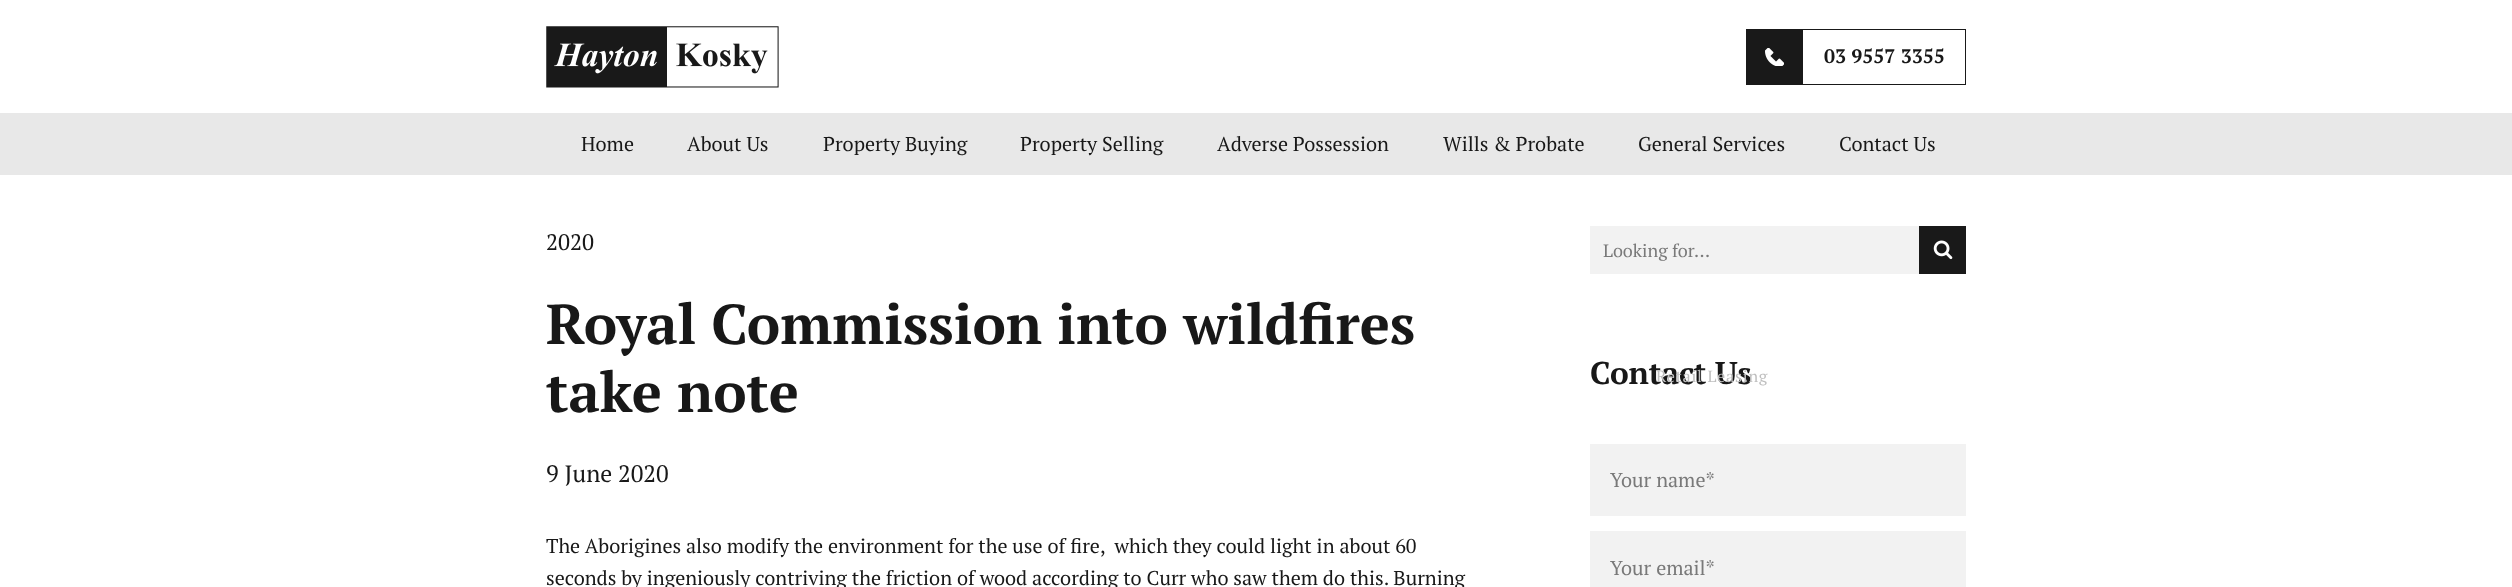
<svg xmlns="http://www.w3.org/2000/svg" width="2512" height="587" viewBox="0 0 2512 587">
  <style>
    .t1 { font: bold 19.5px PT Serif; fill: #181818; }
    .t2 { font: 20px PT Serif; fill: #181818; }
    .t3 { font: bold 31.5px PT Serif; fill: #181818; }
    .t4 { font: 16.25px PT Serif; letter-spacing: 0.75px; fill: #bfbfbf; }
    .t5 { font: 22.5px PT Serif; fill: #181818; }
    .t6 { font: bold 56.25px PT Serif; fill: #181818; }
    .t7 { font: 23.75px PT Serif; fill: #181818; }
    .t8 { font: 18px PT Serif; fill: #797979; }
    .t9 { font: 20px PT Serif; fill: #797979; }
  </style>
  <rect width="100%" height="100%" fill="#fff"/>
  <image x="546" y="26" width="233" height="62" href="images/1.png"/>
  <rect x="1746.5" y="29.5" width="219" height="55" fill="none" stroke="#191919"/>
  <rect x="1747" y="30" width="56" height="54" fill="#191919"/>
  <image x="1765" y="48" width="19" height="18" href="images/2.png"/>
  <text x="1824" y="63" class="t1">03 9557 3355</text>
  <rect x="0" y="113" width="2512" height="62" fill="#e8e8e8"/>
  <text x="581" y="151" class="t2">Home</text>
  <text x="687" y="151" class="t2">About Us</text>
  <text x="823" y="151" class="t2">Property Buying</text>
  <text x="1020" y="151" class="t2">Property Selling</text>
  <text x="1217" y="151" class="t2">Adverse Possession</text>
  <text x="1443" y="151" class="t2">Wills &amp; Probate</text>
  <text x="1638" y="151" class="t2">General Services</text>
  <text x="1590" y="384" class="t3">Contact Us</text>
  <text x="1656" y="382" class="t4">Retail Leasing</text>
  <text x="1839" y="151" class="t2">Contact Us</text>
  <text x="546" y="250" class="t5">2020</text>
  <text x="546" y="344" class="t6">Royal Commission into wildfires</text>
  <text x="546" y="412" class="t6">take note</text>
  <text x="546" y="482" class="t7">9 June 2020</text>
  <text x="546" y="553" class="t2" xml:space="preserve">The Aborigines also modify the environment for the use of fire,  which they could light in about 60</text>
  <text x="546" y="585" class="t2">seconds by ingeniously contriving the friction of wood according to Curr who saw them do this. Burning</text>
  <rect x="1590" y="226" width="329" height="48" fill="#f2f2f2"/>
  <text x="1603" y="257" class="t8">Looking for...</text>
  <rect x="1919" y="226" width="47" height="48" fill="#191919"/>
  <image x="1933" y="240" width="20" height="20" href="images/3.png"/>
  <rect x="1590" y="444" width="376" height="72" fill="#f2f2f2"/>
  <text x="1610" y="487" class="t9">Your name*</text>
  <rect x="1590" y="531" width="376" height="56" fill="#f2f2f2"/>
  <text x="1610" y="575" class="t9">Your email*</text>
</svg>
